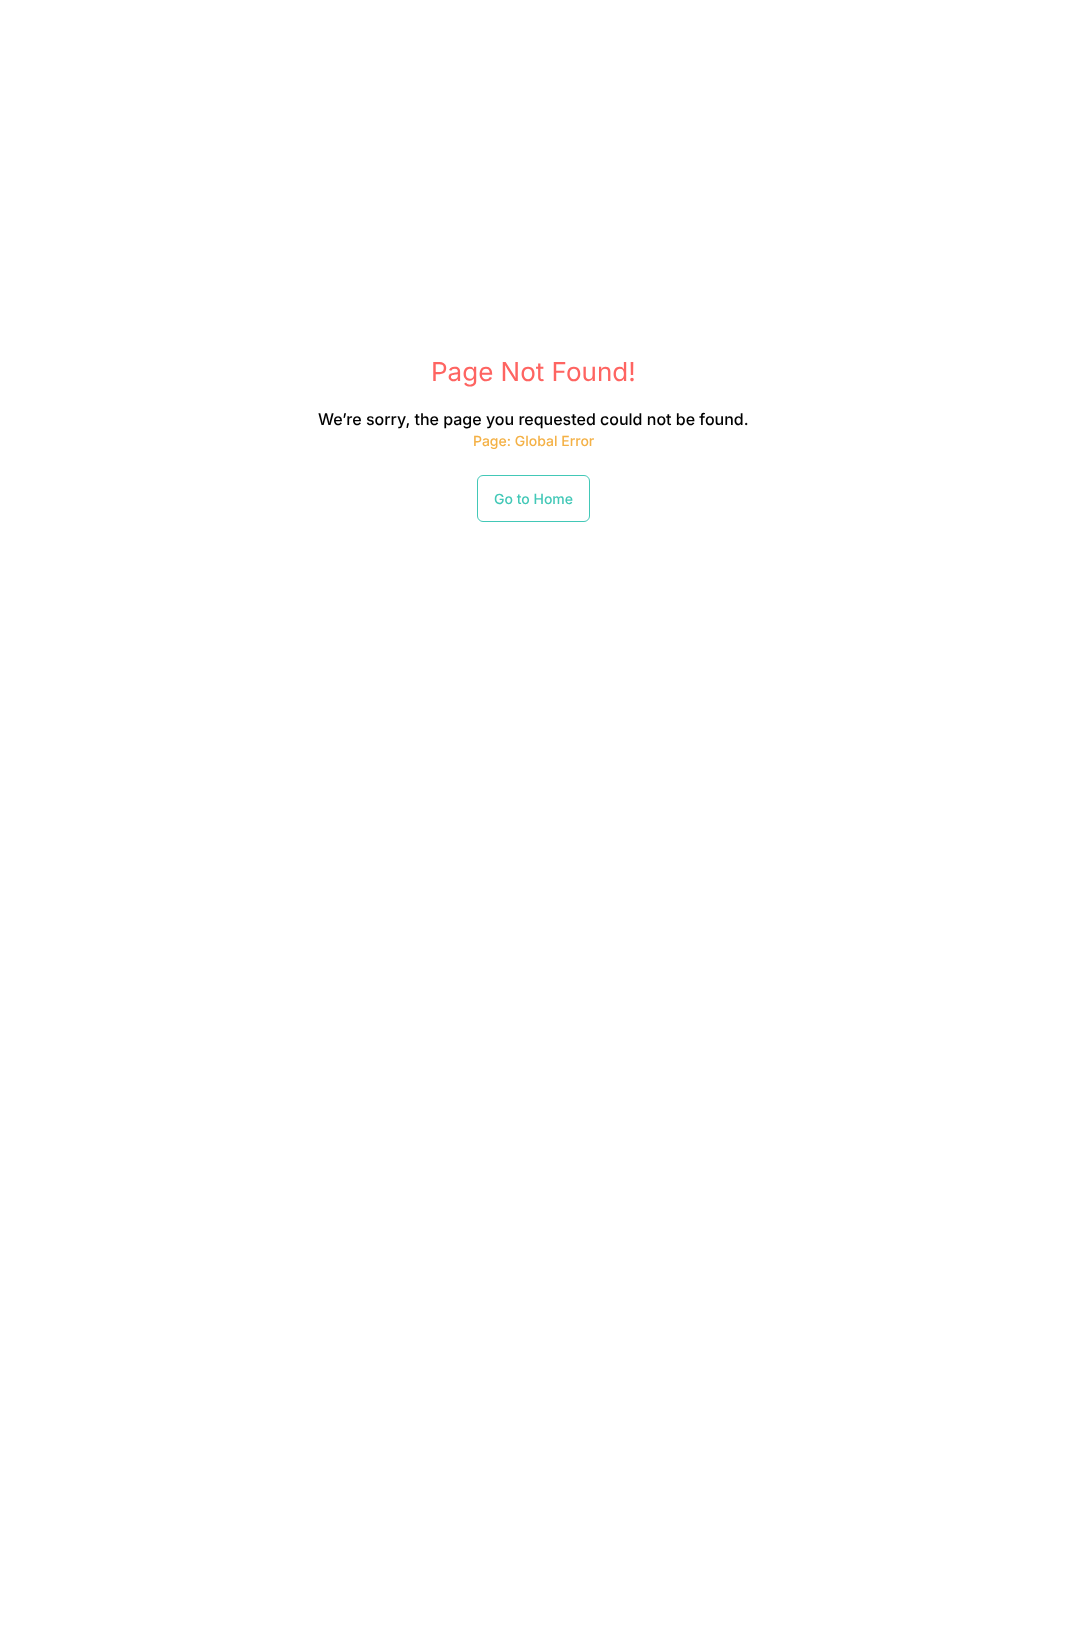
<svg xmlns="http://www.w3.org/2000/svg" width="1067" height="1633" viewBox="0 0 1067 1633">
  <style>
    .t1 { font: 26px Inter; fill: #fe6461; }
    .t2 { font: 500 16px Inter; fill: #000; }
    .t3 { font: 500 14px Inter; fill: #f4b146; }
    .t4 { font: 500 14px Inter; fill: #42c8b7; }
  </style>
  <rect width="100%" height="100%" fill="#fff"/>
  <text x="431" y="381" class="t1">Page Not Found!</text>
  <text x="318" y="425" class="t2">We’re sorry, the page you requested could not be found.</text>
  <text x="473" y="446" class="t3">Page: Global Error</text>
  <rect x="477.5" y="475.5" width="112" height="46" rx="5.5" fill="none" stroke="#42c8b7"/>
  <text x="494" y="504" class="t4">Go to Home</text>
</svg>
